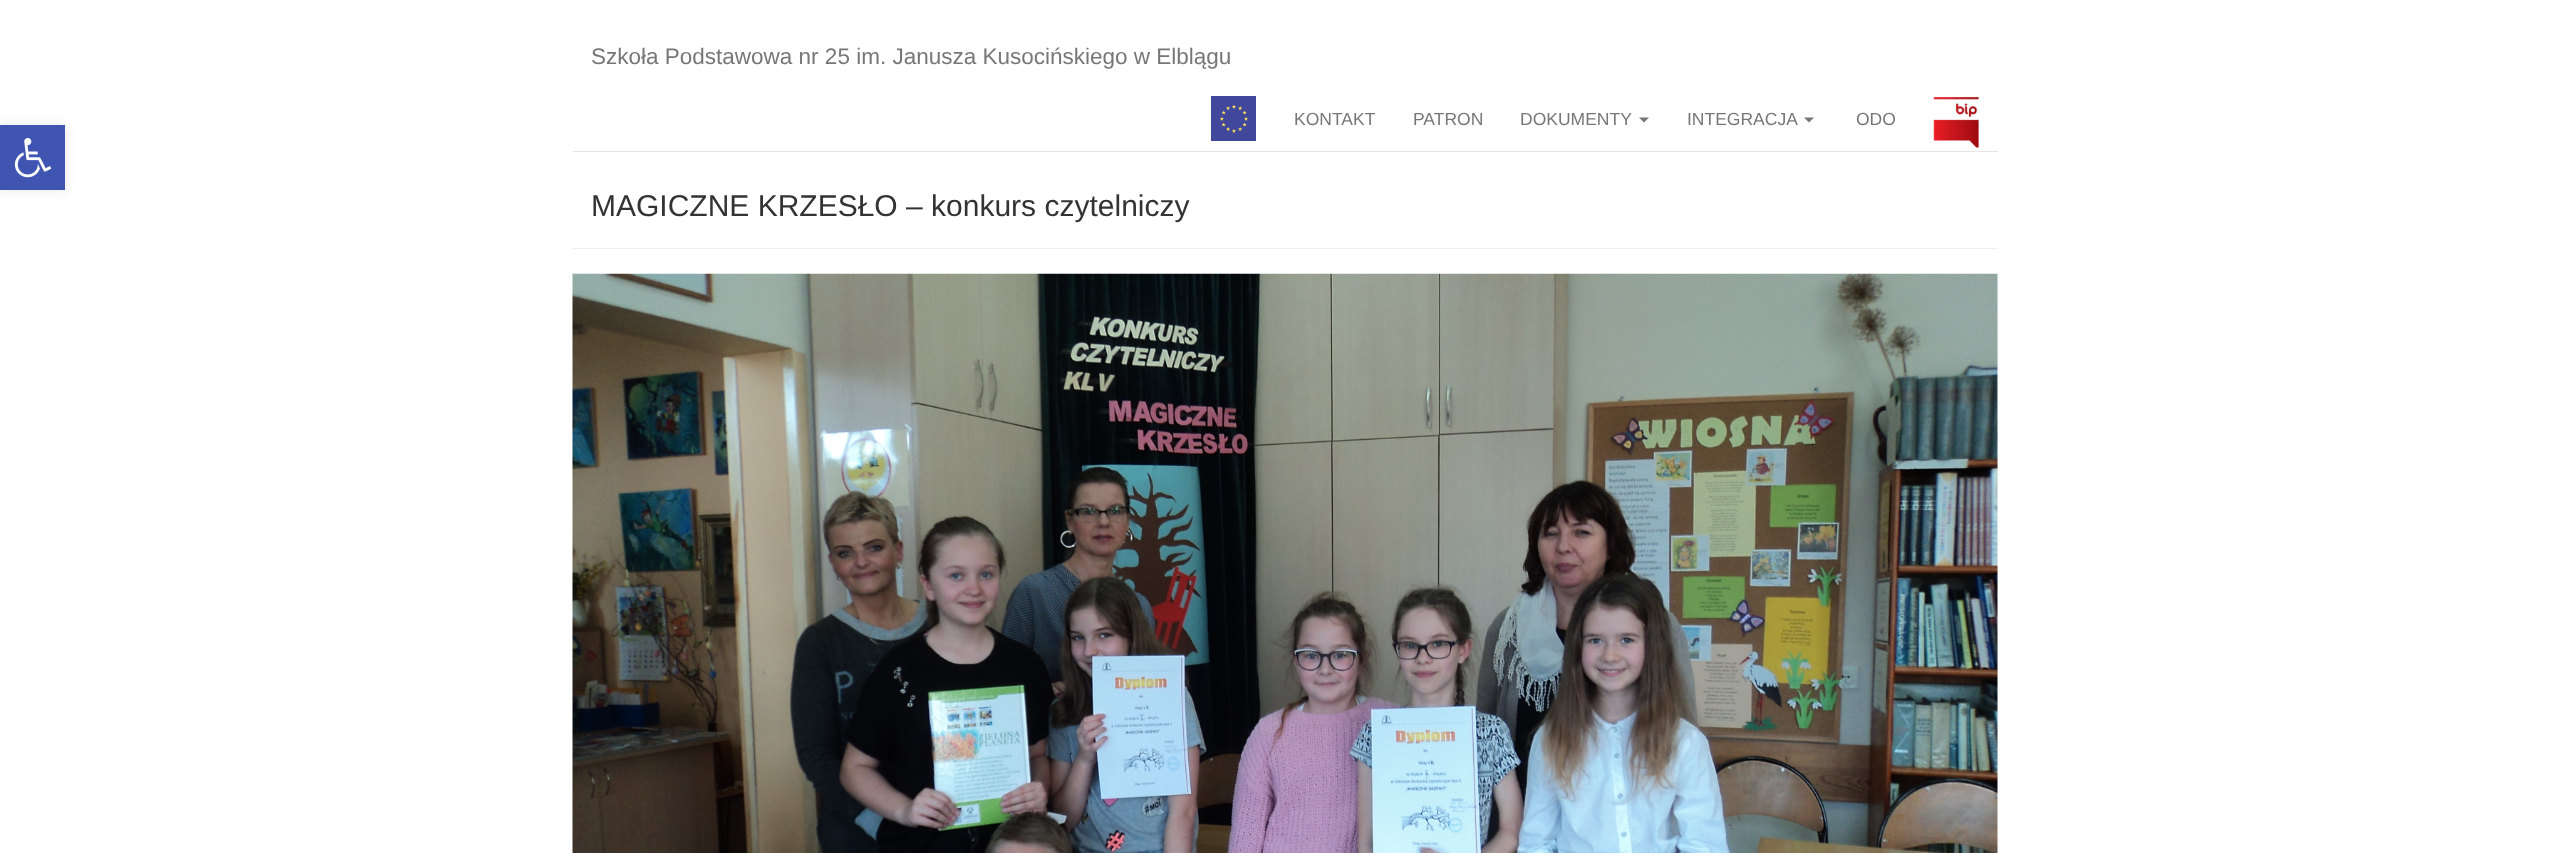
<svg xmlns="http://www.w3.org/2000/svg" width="2570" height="853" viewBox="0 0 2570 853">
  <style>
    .t1 { font: 22.5px Liberation Sans; fill: #777; }
    .t2 { font: 17.5px Liberation Sans; fill: #777; }
    .t3 { font: 30px Liberation Sans; fill: #333; }
  </style>
  <rect width="100%" height="100%" fill="#fff"/>
  <rect x="0" y="125" width="65" height="65" fill="#0000001a" filter="blur(6px)"/>
  <rect x="0" y="125" width="65" height="65" fill="#4054b2"/>
  <image x="14" y="138" width="38" height="40" href="images/1.png"/>
  <rect x="573" y="151" width="1425" height="1" fill="#e5e5e5"/>
  <text x="591" y="64" class="t1">Szkoła Podstawowa nr 25 im. Janusza Kusocińskiego w Elblągu</text>
  <image x="1211" y="96" width="45" height="45" href="images/2.png"/>
  <text x="1294" y="125" class="t2">KONTAKT</text>
  <text x="1413" y="125" class="t2">PATRON</text>
  <text x="1520" y="125" class="t2">DOKUMENTY</text>
  <path d="M1639 117.5H1649L1644 122.5Z" fill="#777"/>
  <text x="1687" y="125" class="t2">INTEGRACJA</text>
  <path d="M1804 117.5H1814L1809 122.5Z" fill="#777"/>
  <text x="1856" y="125" class="t2">ODO</text>
  <image x="1933" y="96" width="46" height="52" href="images/3.png"/>
  <text x="591" y="216" class="t3">MAGICZNE KRZESŁO – konkurs czytelniczy</text>
  <rect x="573" y="248" width="1425" height="1" fill="#eee"/>
  <image x="572" y="273" width="1426" height="580" href="images/4.png"/>
</svg>
